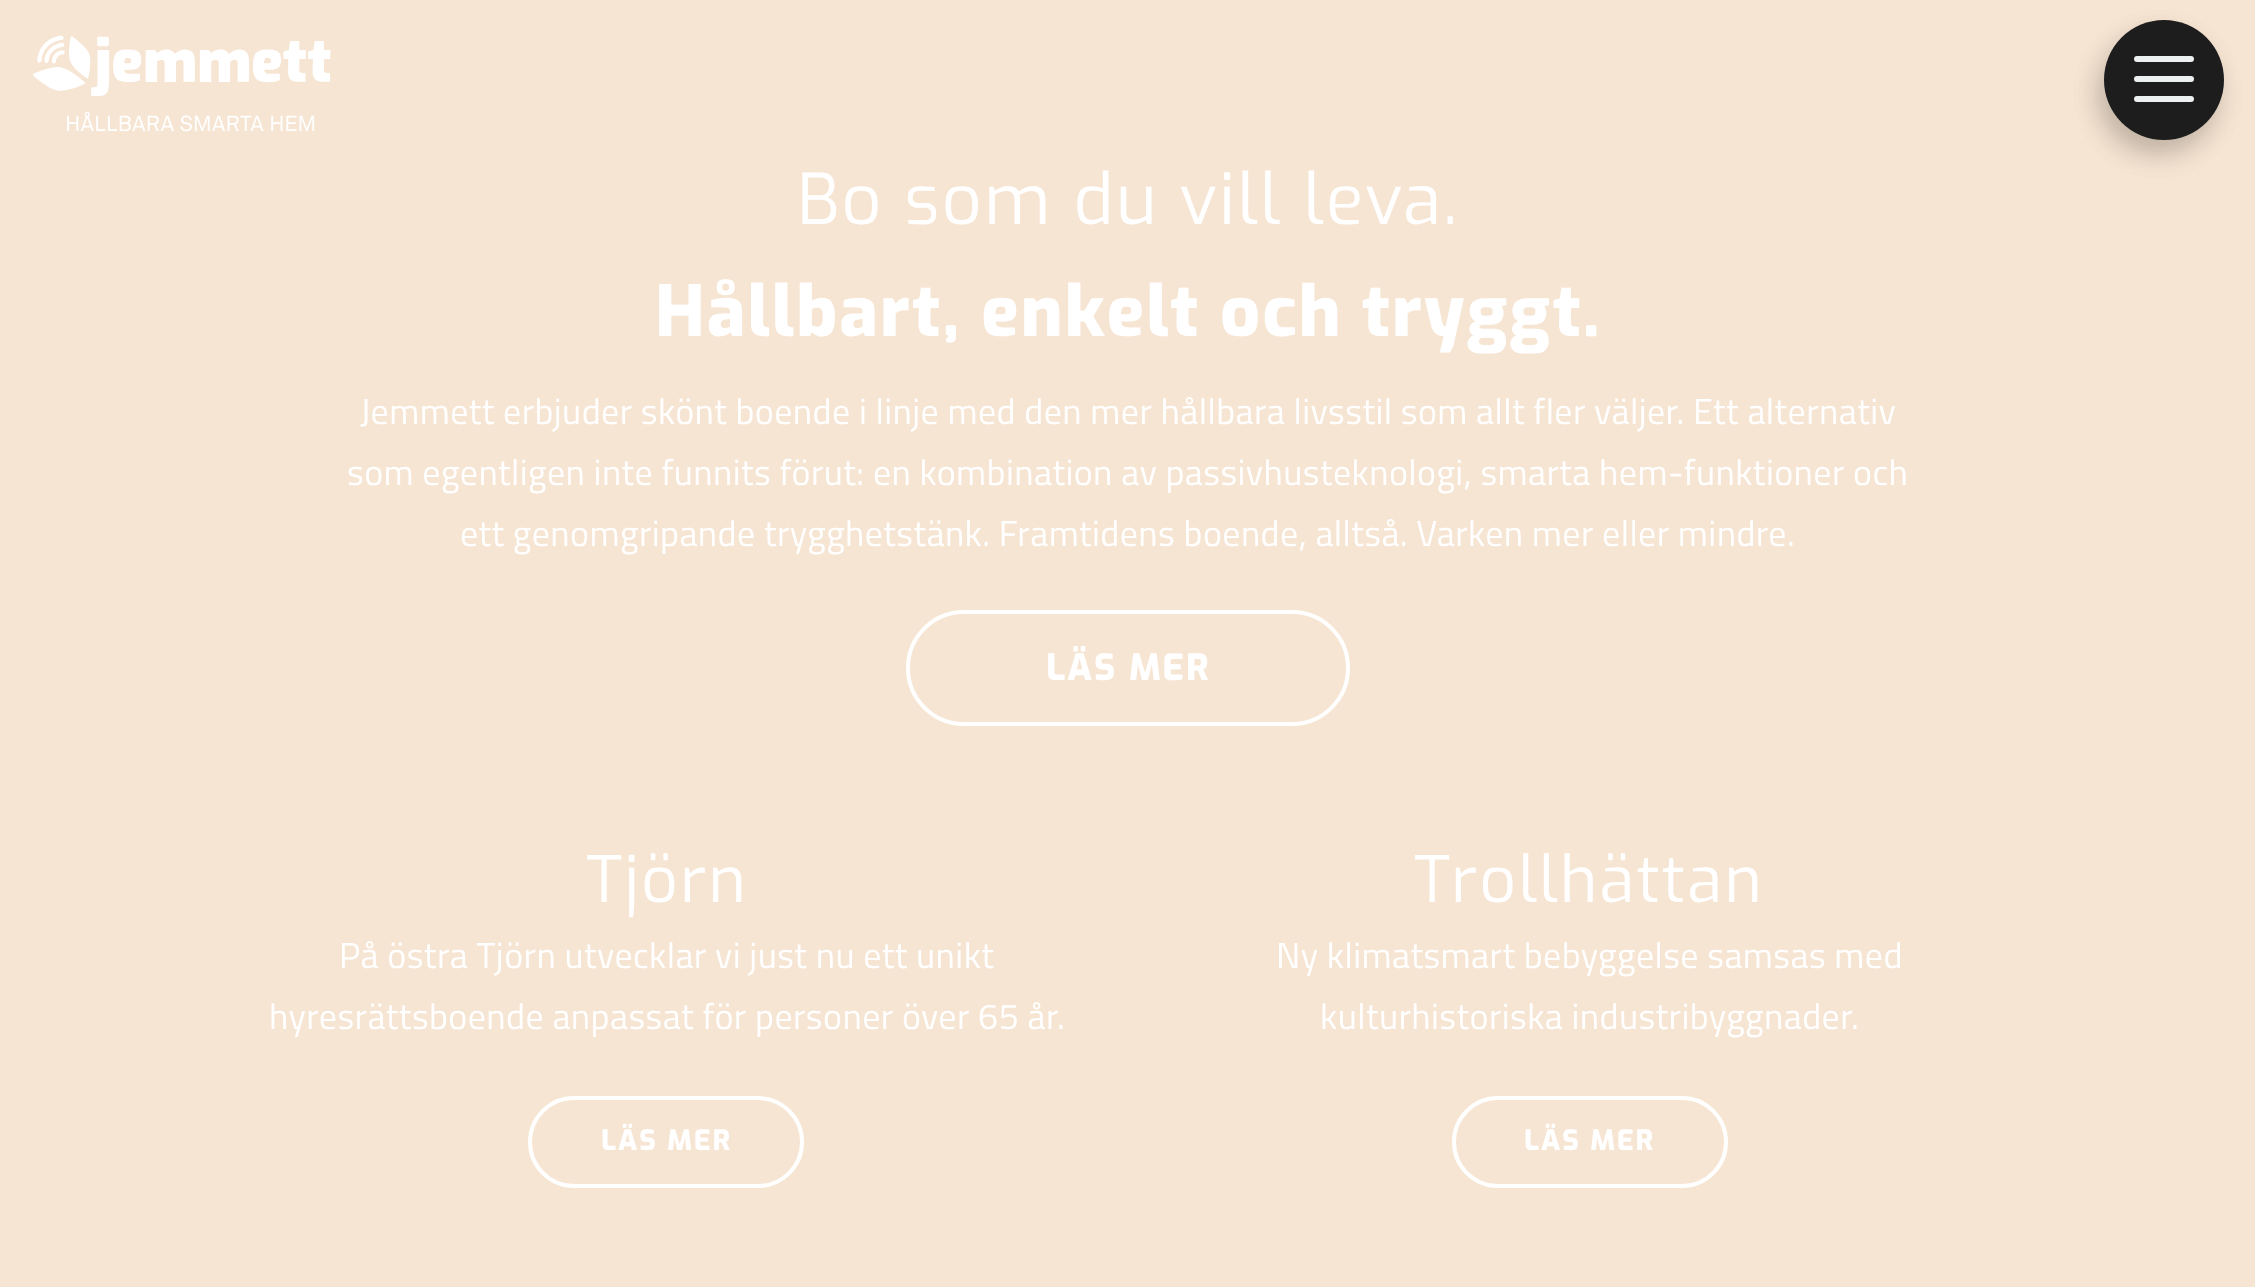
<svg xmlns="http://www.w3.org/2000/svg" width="2255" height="1287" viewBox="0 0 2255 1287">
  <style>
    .t1 { font: 70px Exo; letter-spacing: 2px; fill: #fff; }
    .t2 { font: 800 70px Exo; letter-spacing: 2px; fill: #fff; }
    .t3 { font: 36px Titillium Web; letter-spacing: 0.4px; fill: #fff; }
    .t4 { font: 800 36px Exo; letter-spacing: 2px; fill: #fff; }
    .t5 { font: 64px Exo; letter-spacing: 2px; fill: #fff; }
    .t6 { font: 800 28px Exo; letter-spacing: 2px; fill: #fff; }
  </style>
  <rect width="100%" height="100%" fill="#f7e5d3"/>
  <image x="33" y="35" width="298" height="97" href="images/1.png"/>
  <rect x="2098" y="34" width="120" height="120" rx="60" fill="#0000001f" filter="blur(13px)"/>
  <rect x="2098" y="34" width="120" height="120" rx="60" fill="#1313131f" filter="blur(13px)"/>
  <circle cx="2164" cy="80" r="60" fill="#1d1d1d"/>
  <rect x="2134" y="56" width="60" height="6" rx="3" fill="#ecf0f1"/>
  <rect x="2134" y="76" width="60" height="6" rx="3" fill="#ecf0f1"/>
  <rect x="2134" y="96" width="60" height="6" rx="3" fill="#ecf0f1"/>
  <text x="797" y="224" class="t1">Bo som du vill leva.</text>
  <text x="655" y="336" class="t2">Hållbart, enkelt och tryggt.</text>
  <text x="360" y="424" class="t3">Jemmett erbjuder skönt boende i linje med den mer hållbara livsstil som allt fler väljer. Ett alternativ</text>
  <text x="347" y="485" class="t3">som egentligen inte funnits förut: en kombination av passivhusteknologi, smarta hem-funktioner och</text>
  <text x="460" y="546" class="t3">ett genomgripande trygghetstänk. Framtidens boende, alltså. Varken mer eller mindre.</text>
  <rect x="908" y="612" width="440" height="112" rx="56" fill="none" stroke="#fff" stroke-width="4"/>
  <text x="1046" y="680" class="t4">LÄS MER</text>
  <text x="586" y="902" class="t5">Tjörn</text>
  <text x="339" y="968" class="t3">På östra Tjörn utvecklar vi just nu ett unikt</text>
  <text x="269" y="1029" class="t3">hyresrättsboende anpassat för personer över 65 år.</text>
  <rect x="530" y="1098" width="272" height="88" rx="44" fill="none" stroke="#fff" stroke-width="4"/>
  <text x="601" y="1150" class="t6">LÄS MER</text>
  <text x="1414" y="902" class="t5">Trollhättan</text>
  <text x="1276" y="968" class="t3">Ny klimatsmart bebyggelse samsas med</text>
  <text x="1320" y="1029" class="t3">kulturhistoriska industribyggnader.</text>
  <rect x="1454" y="1098" width="272" height="88" rx="44" fill="none" stroke="#fff" stroke-width="4"/>
  <text x="1524" y="1150" class="t6">LÄS MER</text>
</svg>
